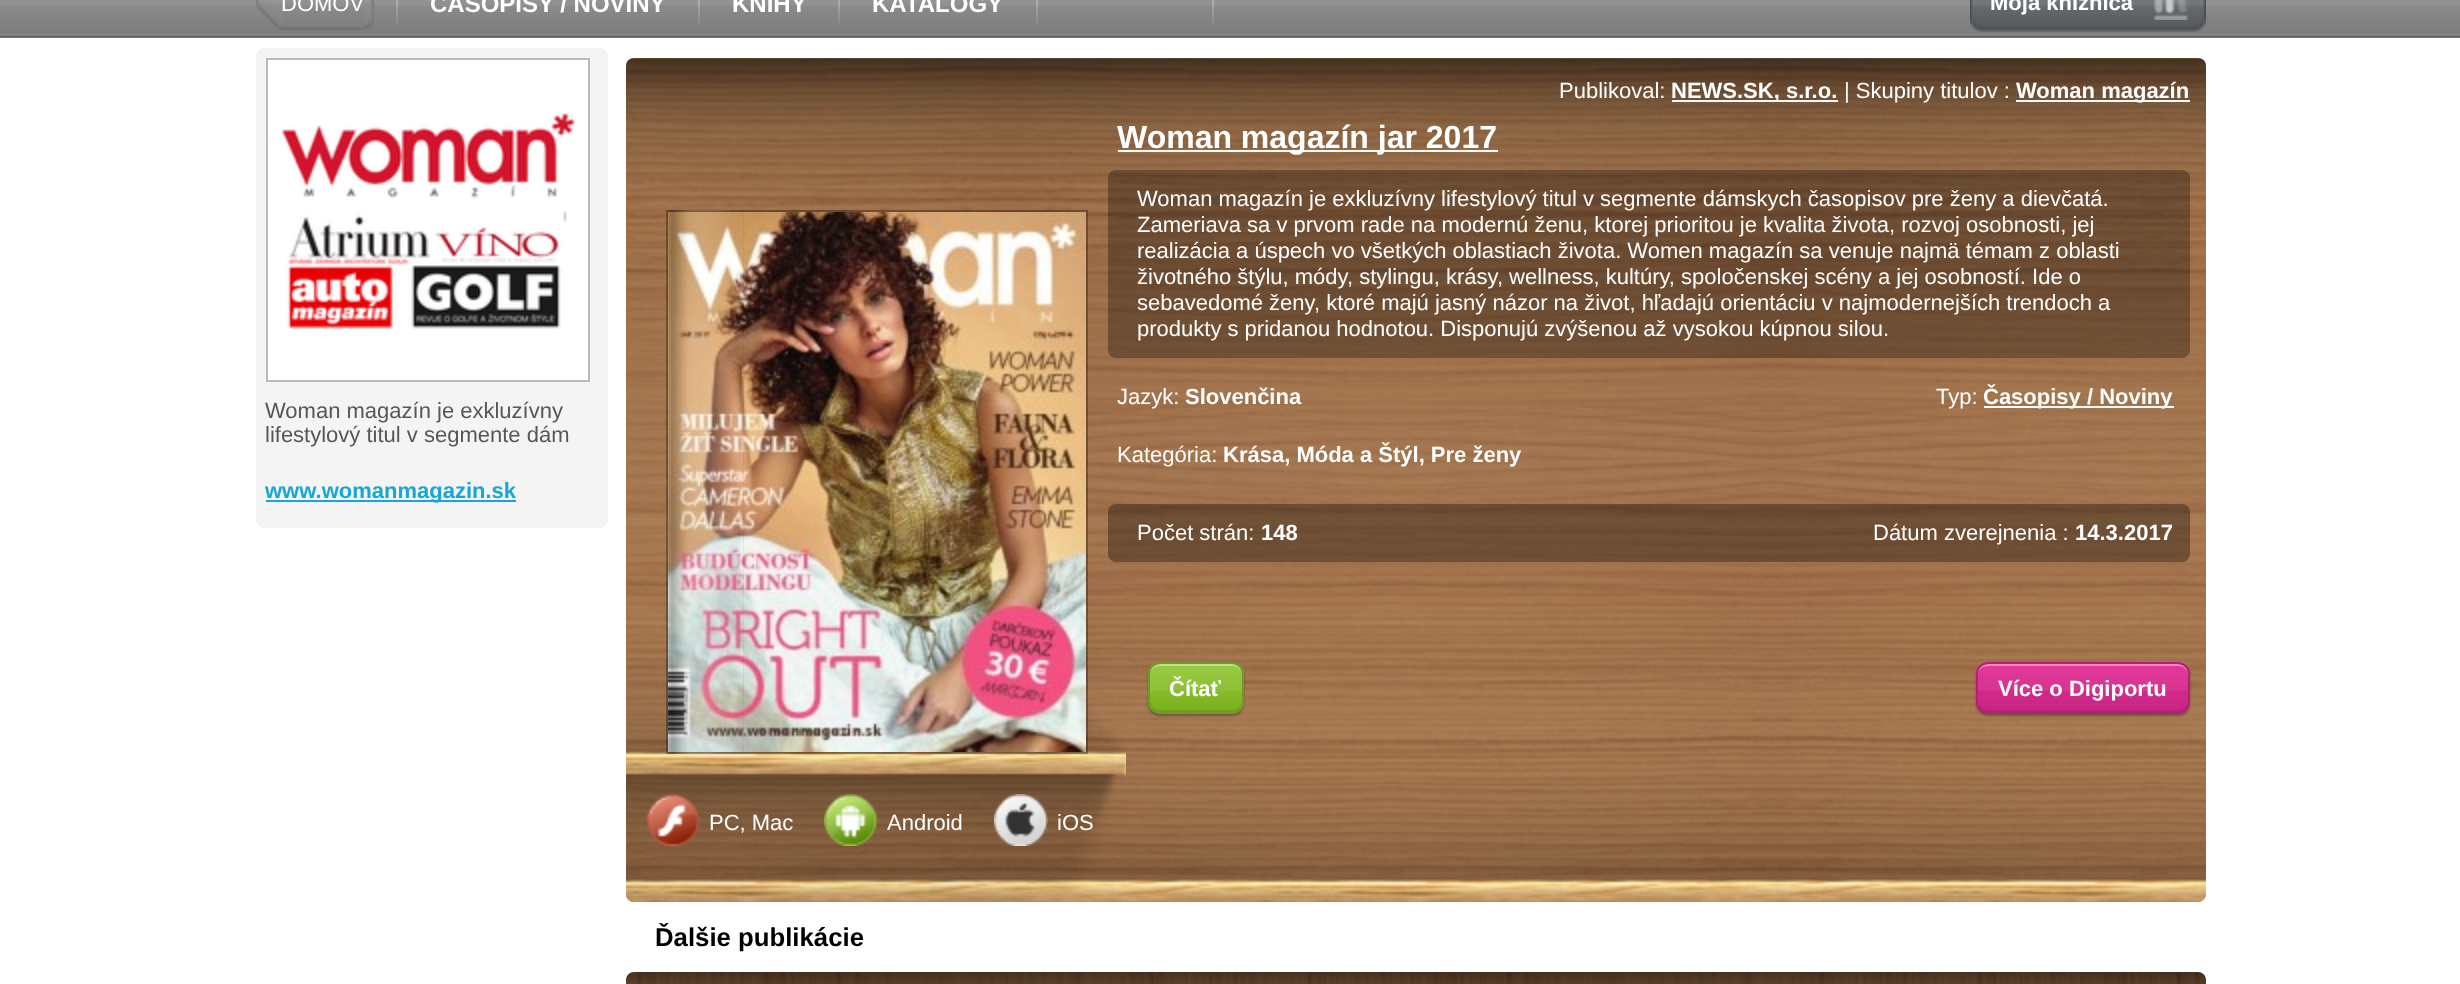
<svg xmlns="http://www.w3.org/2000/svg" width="2460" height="984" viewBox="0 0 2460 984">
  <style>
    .t1 { font: 22px Liberation Sans; fill: #fff; }
    .t2 { font: bold 24px Liberation Sans; fill: #fff; }
    .t3 { font: bold 22px Liberation Sans; fill: #fff; }
    .t4 { font: 22px Liberation Sans; fill: #565656; }
    .t5 { font: bold 22px Liberation Sans; fill: #17a7d6; }
    .t6 { font: bold 32px Liberation Sans; fill: #fff; }
    .t7 { font: bold 25.75px Liberation Sans; fill: #000; }
  </style>
  <defs>
    <clipPath id="clip1"><rect x="1148" y="662" width="96" height="52" rx="12"/></clipPath>
    <linearGradient id="g1" gradientUnits="userSpaceOnUse" x1="1196" y1="664" x2="1196" y2="712"><stop offset="0" stop-color="#9acb45"/><stop offset="0.55" stop-color="#8ebf36"/><stop offset="0.56" stop-color="#86bb29"/><stop offset="1" stop-color="#79b01a"/></linearGradient>
    <clipPath id="clip2"><rect x="1976" y="662" width="214" height="52" rx="12"/></clipPath>
    <linearGradient id="g2" gradientUnits="userSpaceOnUse" x1="2083" y1="664" x2="2083" y2="712"><stop offset="0" stop-color="#e3389a"/><stop offset="0.55" stop-color="#d63591"/><stop offset="0.56" stop-color="#d2298b"/><stop offset="1" stop-color="#c72683"/></linearGradient>
  </defs>
  <rect width="100%" height="100%" fill="#fff"/>
  <image x="0" y="0" width="2460" height="38" href="images/1.png"/>
  <image x="256" y="0" width="26" height="30" href="images/2.png"/>
  <image x="282" y="26" width="82" height="4" href="images/3.png"/>
  <text x="281" y="11" class="t1">DOMOV</text>
  <image x="364" y="0" width="10" height="30" href="images/4.png"/>
  <image x="396" y="0" width="2" height="26" href="images/5.png"/>
  <text x="430" y="12" class="t2">ČASOPISY / NOVINY</text>
  <image x="698" y="0" width="2" height="26" href="images/5.png"/>
  <text x="732" y="12" class="t2">KNIHY</text>
  <image x="838" y="0" width="2" height="26" href="images/5.png"/>
  <text x="872" y="12" class="t2">KATALÓGY</text>
  <image x="1036" y="0" width="2" height="26" href="images/5.png"/>
  <image x="1212" y="0" width="2" height="26" href="images/5.png"/>
  <image x="1970" y="0" width="12" height="32" href="images/6.png"/>
  <image x="1982" y="0" width="212" height="32" href="images/7.png"/>
  <text x="1990" y="10" class="t3">Moja knižnica</text>
  <image x="2154" y="0" width="34" height="20" href="images/8.png"/>
  <image x="2194" y="0" width="12" height="32" href="images/9.png"/>
  <rect x="256" y="48" width="352" height="480" rx="8" fill="#f4f4f4"/>
  <rect x="267" y="59" width="322" height="322" fill="#fff" stroke="#bababa" stroke-width="2"/>
  <image x="281" y="113" width="294" height="216" href="images/10.png"/>
  <text x="265" y="418" class="t4">Woman magazín je exkluzívny</text>
  <text x="265" y="442" class="t4">lifestylový titul v segmente dám</text>
  <rect x="266" y="500" width="250" height="2" fill="#17a7d6"/>
  <text x="265" y="498" class="t5">www.womanmagazin.sk</text>
  <image x="626" y="58" width="1580" height="844" href="images/11.png"/>
  <image x="626" y="58" width="1580" height="134" href="images/12.png"/>
  <text x="1559" y="98" class="t1">Publikoval:</text>
  <rect x="1672" y="100" width="166" height="2" fill="#fff"/>
  <text x="1671" y="98" class="t3">NEWS.SK, s.r.o.</text>
  <text x="1844" y="98" class="t1">| Skupiny titulov :</text>
  <rect x="2016" y="100" width="174" height="2" fill="#fff"/>
  <text x="2016" y="98" class="t3">Woman magazín</text>
  <rect x="1118" y="150" width="380" height="2" fill="#fff"/>
  <text x="1117" y="148" class="t6">Woman magazín jar 2017</text>
  <image x="626" y="778" width="1580" height="124" href="images/19.png"/>
  <image x="626" y="657" width="500" height="245" href="images/15.png"/>
  <rect x="666" y="210" width="422" height="544" fill="#0000004d"/>
  <image x="668" y="212" width="418" height="540" href="images/14.png"/>
  <image x="667" y="210" width="77" height="544" href="images/13.png"/>
  <rect x="1108" y="170" width="1082" height="188" rx="8" fill="#0000004d"/>
  <text x="1137" y="206" class="t1">Woman magazín je exkluzívny lifestylový titul v segmente dámskych časopisov pre ženy a dievčatá.</text>
  <text x="1137" y="232" class="t1">Zameriava sa v prvom rade na modernú ženu, ktorej prioritou je kvalita života, rozvoj osobnosti, jej</text>
  <text x="1137" y="258" class="t1">realizácia a úspech vo všetkých oblastiach života. Women magazín sa venuje najmä témam z oblasti</text>
  <text x="1137" y="284" class="t1">životného štýlu, módy, stylingu, krásy, wellness, kultúry, spoločenskej scény a jej osobností. Ide o</text>
  <text x="1137" y="310" class="t1">sebavedomé ženy, ktoré majú jasný názor na život, hľadajú orientáciu v najmodernejších trendoch a</text>
  <text x="1137" y="336" class="t1">produkty s pridanou hodnotou. Disponujú zvýšenou až vysokou kúpnou silou.</text>
  <text x="1117" y="404" class="t1">Jazyk:</text>
  <text x="1185" y="404" class="t3">Slovenčina</text>
  <text x="1936" y="404" class="t1">Typ:</text>
  <rect x="1984" y="406" width="190" height="2" fill="#fff"/>
  <text x="1983" y="404" class="t3">Časopisy / Noviny</text>
  <text x="1117" y="462" class="t1">Kategória:</text>
  <text x="1223" y="462" class="t3">Krása, Móda a Štýl, Pre ženy</text>
  <rect x="1108" y="504" width="1082" height="58" rx="8" fill="#00000054"/>
  <text x="1137" y="540" class="t1">Počet strán:</text>
  <text x="1261" y="540" class="t3">148</text>
  <text x="1873" y="540" class="t1">Dátum zverejnenia :</text>
  <text x="2075" y="540" class="t3">14.3.2017</text>
  <rect x="1148" y="664" width="96" height="52" rx="12" fill="#0000004d" filter="blur(1px)"/>
  <g clip-path="url(#clip1)">
    <rect x="1148" y="664" width="96" height="48" fill="url(#g1)"/>
  </g>
  <path d="M1150 700C1150 714 1161 712 1172 712H1220C1231 712 1242 714 1242 700C1242 706 1238 710 1232 710H1160C1154 710 1150 706 1150 700Z" fill="#0000001a"/>
  <path d="M1160 666H1232C1238 666 1242 670 1242 676C1242 662 1231 664 1220 664H1172C1161 664 1150 662 1150 676C1150 670 1154 666 1160 666Z" fill="#ffffff66"/>
  <rect x="1149" y="663" width="94" height="50" rx="11" fill="none" stroke="#729830" stroke-width="2"/>
  <text x="1169" y="696" class="t3">Čítať</text>
  <rect x="1976" y="664" width="214" height="52" rx="12" fill="#0000004d" filter="blur(1px)"/>
  <g clip-path="url(#clip2)">
    <rect x="1976" y="664" width="214" height="48" fill="url(#g2)"/>
  </g>
  <path d="M1978 700V702C1978 708 1982 712 1988 712H2178C2184 712 2188 708 2188 702V700C2188 706 2184 710 2178 710H1988C1982 710 1978 706 1978 700Z" fill="#0000001a"/>
  <path d="M1988 666H2178C2184 666 2188 670 2188 676V674C2188 668 2184 664 2178 664H1988C1982 664 1978 668 1978 674V676C1978 670 1982 666 1988 666Z" fill="#ffffff66"/>
  <rect x="1977" y="663" width="212" height="50" rx="11" fill="none" stroke="#b71f76" stroke-width="2"/>
  <text x="1998" y="696" class="t3">Více o Digiportu</text>
  <image x="646" y="794" width="54" height="52" href="images/16.png"/>
  <text x="709" y="830" class="t1">PC, Mac</text>
  <image x="824" y="794" width="54" height="52" href="images/17.png"/>
  <text x="887" y="830" class="t1">Android</text>
  <image x="994" y="794" width="54" height="52" href="images/18.png"/>
  <text x="1057" y="830" class="t1">iOS</text>
  <text x="655" y="946" class="t7">Ďalšie publikácie</text>
  <image x="626" y="972" width="1580" height="12" href="images/20.png"/>
</svg>
